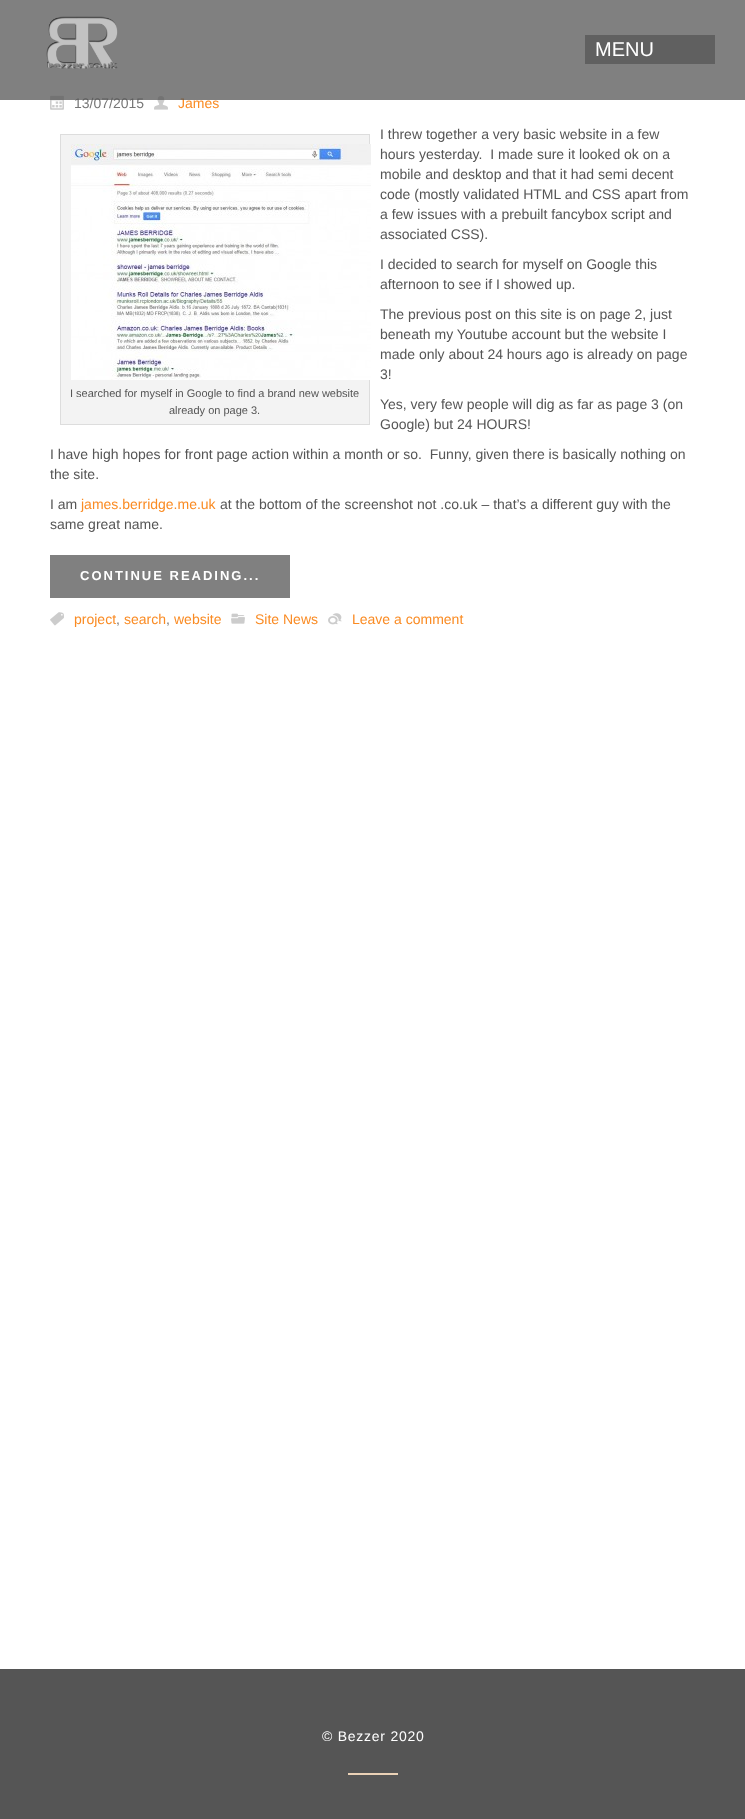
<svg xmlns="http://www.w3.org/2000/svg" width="745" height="1819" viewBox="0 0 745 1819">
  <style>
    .t1 { font: 14px Liberation Sans; fill: #777; }
    .t2 { font: 14px Liberation Sans; fill: #fa8b23; }
    .t3 { font: 20px Liberation Sans; fill: #fff; }
    .t4 { font: 14px Liberation Sans; fill: #555; }
    .t5 { font: 11px Liberation Sans; fill: #555; }
    .t6 { font: bold 13px Liberation Sans; letter-spacing: 2px; fill: #fff; }
    .t7 { font: 14px Liberation Sans; letter-spacing: 0.75px; fill: #fff; }
  </style>
  <rect width="100%" height="100%" fill="#fff"/>
  <image x="50" y="95" width="14" height="15" href="images/2.png"/>
  <text x="74" y="108" class="t1">13/07/2015</text>
  <image x="154" y="96" width="14" height="14" href="images/3.png"/>
  <text x="178" y="108" class="t2">James</text>
  <rect x="0" y="0" width="745" height="100" fill="#555555bf"/>
  <image x="46" y="16" width="72" height="53" href="images/1.png"/>
  <rect x="585" y="35" width="130" height="29" fill="#606060"/>
  <text x="595" y="56" class="t3">MENU</text>
  <text x="380" y="139" class="t4">I threw together a very basic website in a few</text>
  <text x="380" y="159" class="t4" xml:space="preserve">hours yesterday.  I made sure it looked ok on a</text>
  <text x="380" y="179" class="t4">mobile and desktop and that it had semi decent</text>
  <text x="380" y="199" class="t4">code (mostly validated HTML and CSS apart from</text>
  <text x="380" y="219" class="t4">a few issues with a prebuilt fancybox script and</text>
  <text x="380" y="239" class="t4">associated CSS).</text>
  <text x="380" y="269" class="t4">I decided to search for myself on Google this</text>
  <text x="380" y="289" class="t4">afternoon to see if I showed up.</text>
  <text x="380" y="319" class="t4">The previous post on this site is on page 2, just</text>
  <text x="380" y="339" class="t4">beneath my Youtube account but the website I</text>
  <text x="380" y="359" class="t4">made only about 24 hours ago is already on page</text>
  <text x="380" y="379" class="t4">3!</text>
  <rect x="60.5" y="134.5" width="309" height="290" fill="#f3f3f3" stroke="#ddd"/>
  <image x="71" y="144" width="300" height="236" href="images/4.png"/>
  <text x="70" y="397" class="t5">I searched for myself in Google to find a brand new website</text>
  <text x="169" y="414" class="t5">already on page 3.</text>
  <text x="380" y="409" class="t4">Yes, very few people will dig as far as page 3 (on</text>
  <text x="380" y="429" class="t4">Google) but 24 HOURS!</text>
  <text x="50" y="459" class="t4" xml:space="preserve">I have high hopes for front page action within a month or so.  Funny, given there is basically nothing on</text>
  <text x="50" y="479" class="t4">the site.</text>
  <text x="50" y="509" class="t4">I am</text>
  <text x="81" y="509" class="t2">james.berridge.me.uk</text>
  <text x="220" y="509" class="t4">at the bottom of the screenshot not .co.uk – that’s a different guy with the</text>
  <text x="50" y="529" class="t4">same great name.</text>
  <rect x="50" y="555" width="240" height="43" fill="#808080"/>
  <text x="80" y="580" class="t6">CONTINUE READING...</text>
  <image x="50" y="612" width="14" height="14" href="images/5.png"/>
  <text x="74" y="624" class="t2">project</text>
  <text x="116" y="624" class="t1">,</text>
  <text x="124" y="624" class="t2">search</text>
  <text x="166" y="624" class="t1">,</text>
  <text x="174" y="624" class="t2">website</text>
  <image x="231" y="613" width="14" height="11" href="images/6.png"/>
  <text x="255" y="624" class="t2">Site News</text>
  <image x="328" y="613" width="14" height="12" href="images/7.png"/>
  <text x="352" y="624" class="t2">Leave a comment</text>
  <rect x="0" y="1669" width="745" height="150" fill="#555"/>
  <text x="322" y="1741" class="t7">© Bezzer 2020</text>
  <rect x="348" y="1773" width="50" height="2" fill="#ebd2b7"/>
</svg>
